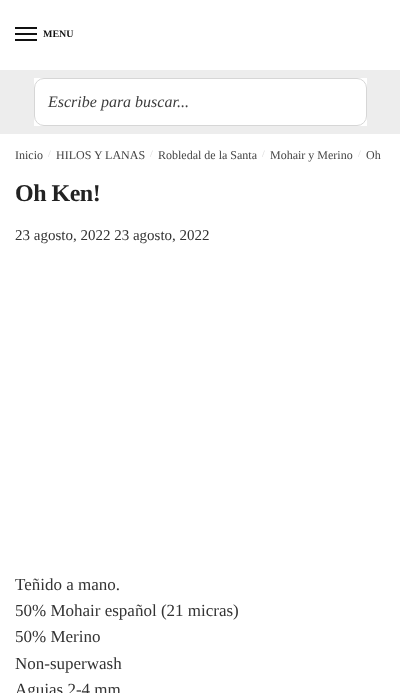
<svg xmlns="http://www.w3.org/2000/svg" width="400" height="693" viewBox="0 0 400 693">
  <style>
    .t1 { font: bold 10px Liberation Serif; fill: #111; }
    .t2 { font: italic 16px Liberation Serif; fill: #3d3d3d; }
    .t3 { font: 12px Liberation Serif; fill: #444; }
    .t4 { font: 10px Liberation Serif; fill: #d6d6d6; }
    .t5 { font: bold 24px Liberation Serif; letter-spacing: -0.5px; fill: #222; }
    .t6 { font: 15px Liberation Serif; fill: #333; }
    .t7 { font: 17px Liberation Serif; fill: #333; }
  </style>
  <rect width="100%" height="100%" fill="#fff"/>
  <rect x="15" y="27" width="22" height="2" fill="#111"/>
  <rect x="15" y="33" width="22" height="2" fill="#111"/>
  <text x="43" y="37" class="t1">MENU</text>
  <rect x="15" y="39" width="22" height="2" fill="#111"/>
  <rect x="0" y="70" width="400" height="64" fill="#ededed"/>
  <rect x="34" y="78" width="333" height="48" fill="#fff"/>
  <rect x="34.5" y="78.5" width="332" height="47" rx="9.5" fill="none" stroke="#d6d6d6"/>
  <text x="48" y="107" class="t2">Escribe para buscar...</text>
  <text x="15" y="159" class="t3">Inicio</text>
  <text x="48" y="157" class="t4">/</text>
  <text x="56" y="159" class="t3">HILOS Y LANAS</text>
  <text x="150" y="157" class="t4">/</text>
  <text x="158" y="159" class="t3">Robledal de la Santa</text>
  <text x="262" y="157" class="t4">/</text>
  <text x="270" y="159" class="t3">Mohair y Merino</text>
  <text x="358" y="157" class="t4">/</text>
  <text x="366" y="159" class="t3">Oh</text>
  <text x="15" y="201" class="t5">Oh Ken!</text>
  <text x="15" y="240" class="t6">23 agosto, 2022 23 agosto, 2022</text>
  <text x="15" y="590" class="t7">Teñido a mano.</text>
  <text x="15" y="616" class="t7">50% Mohair español (21 micras)</text>
  <text x="15" y="642" class="t7">50% Merino</text>
  <text x="15" y="669" class="t7">Non-superwash</text>
  <text x="15" y="695" class="t7">Agujas 2-4 mm</text>
</svg>
